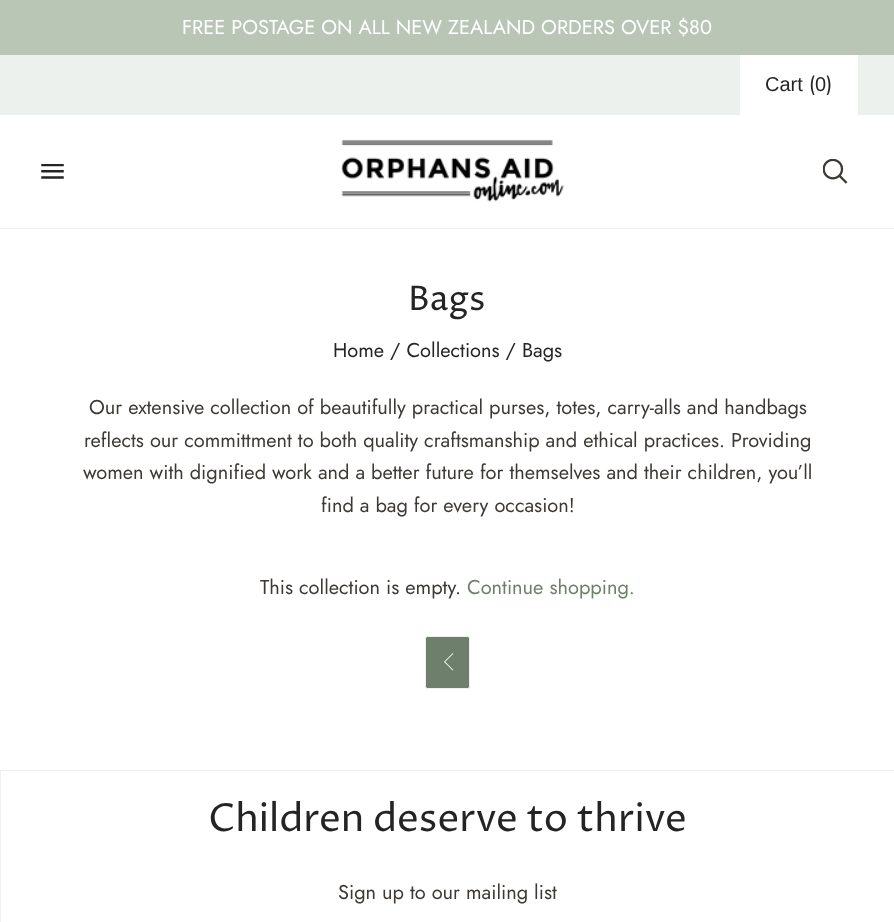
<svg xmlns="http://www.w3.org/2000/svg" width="894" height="922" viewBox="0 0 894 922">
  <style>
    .t1 { font: 20px Jost; fill: #fff; }
    .t2 { font: 20px Liberation Sans; fill: #242424; }
    .t3 { font: 20px Jost; fill: #242424; }
    .t4 { font: 34px Proza Libre; fill: #242424; }
    .t5 { font: 20px Jost; fill: #3d3935; }
    .t6 { font: 20px Jost; fill: #6e806b; }
    .t7 { font: 38.5px Proza Libre; fill: #242424; }
  </style>
  <rect width="100%" height="100%" fill="#fff"/>
  <rect x="0" y="0" width="894" height="55" fill="#b9c6b6"/>
  <text x="182" y="34" class="t1">FREE POSTAGE ON ALL NEW ZEALAND ORDERS OVER $80</text>
  <rect x="0" y="228" width="894" height="1" fill="#f0f0f0"/>
  <rect x="0" y="55" width="894" height="60" fill="#edf1ed"/>
  <rect x="740" y="55" width="118" height="60" fill="#fff"/>
  <text x="765" y="91" class="t2">Cart</text>
  <text x="809" y="91" class="t3">(</text>
  <text x="815" y="91" class="t2">0</text>
  <text x="826" y="91" class="t3">)</text>
  <image x="41" y="164" width="23" height="15" href="images/1.png"/>
  <image x="341" y="139" width="223" height="63" href="images/2.png"/>
  <image x="823" y="159" width="25" height="25" href="images/3.png"/>
  <text x="408" y="310" class="t4">Bags</text>
  <text x="333" y="357" class="t3">Home / Collections / Bags</text>
  <text x="89" y="414" class="t5">Our extensive collection of beautifully practical purses, totes, carry-alls and handbags</text>
  <text x="84" y="447" class="t5">reflects our committment to both quality craftsmanship and ethical practices. Providing</text>
  <text x="83" y="479" class="t5">women with dignified work and a better future for themselves and their children, you’ll</text>
  <text x="321" y="512" class="t5">find a bag for every occasion!</text>
  <text x="260" y="594" class="t5">This collection is empty.</text>
  <text x="467" y="594" class="t6">Continue shopping.</text>
  <rect x="425.5" y="636.5" width="44" height="52" rx="2" fill="#6e806b" stroke="#f0f0f0"/>
  <image x="444" y="653" width="10" height="18" href="images/4.png"/>
  <rect x="0.5" y="770.5" width="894" height="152" fill="none" stroke="#f0f0f0"/>
  <text x="208" y="831" class="t7">Children deserve to thrive</text>
  <text x="338" y="899" class="t5">Sign up to our mailing list</text>
</svg>
